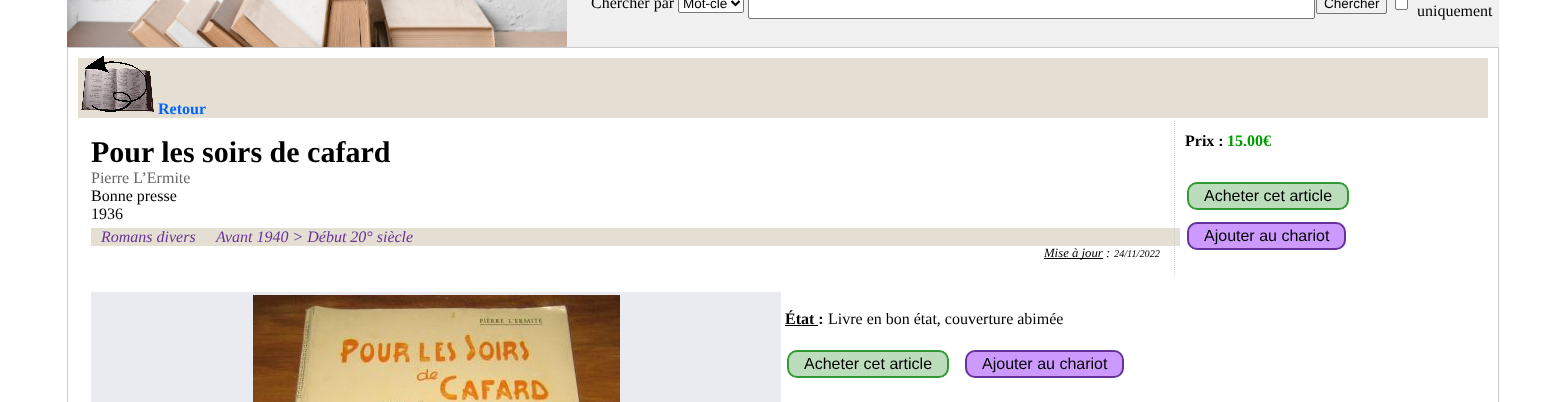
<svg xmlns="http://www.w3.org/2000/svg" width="1566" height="402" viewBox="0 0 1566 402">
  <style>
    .t1 { font: 16px Liberation Serif; fill: #000; }
    .t2 { font: 13.5px Liberation Sans; fill: #000; }
    .t3 { font: bold 16px Liberation Serif; fill: #06f; }
    .t4 { font: bold 30px Liberation Serif; fill: #000; }
    .t5 { font: 16px Liberation Serif; fill: #666; }
    .t6 { font: italic 16px Liberation Serif; fill: #639; }
    .t7 { font: italic 12.75px Liberation Serif; fill: #000; }
    .t8 { font: italic 10.25px Liberation Serif; fill: #000; }
    .t9 { font: bold 16px Liberation Serif; fill: #000; }
    .t10 { font: bold 16px Liberation Serif; fill: #090; }
    .t11 { font: 16px Liberation Sans; fill: #000; }
  </style>
  <rect width="100%" height="100%" fill="#fff"/>
  <rect x="567" y="0" width="932" height="47" fill="#f1f1f1"/>
  <image x="67" y="0" width="500" height="47" href="images/1.png"/>
  <text x="591" y="8" class="t1">Chercher par</text>
  <rect x="678.5" y="-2.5" width="65" height="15" rx="1.5" fill="#fff" stroke="#767676"/>
  <path d="M731.5 1L735.5 5L739.5 1" fill="none" stroke="#000" stroke-width="2"/>
  <text x="683" y="8" class="t2">Mot-clé</text>
  <rect x="748.5" y="-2.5" width="566" height="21" rx="1.5" fill="#fff" stroke="#767676"/>
  <rect x="1316.5" y="-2.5" width="70" height="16" rx="1.5" fill="none" stroke="#767676"/>
  <text x="1324" y="8" class="t2">Chercher</text>
  <rect x="1395.5" y="-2.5" width="12" height="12" rx="1.5" fill="#fff" stroke="#767676"/>
  <text x="1417" y="16" class="t1">uniquement</text>
  <rect x="67.5" y="47.5" width="1431" height="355" fill="none" stroke="#ccc"/>
  <rect x="78" y="58" width="1410" height="60" fill="#e5ded2"/>
  <image x="81" y="56" width="73" height="56" href="images/2.png"/>
  <text x="158" y="114" class="t3">Retour</text>
  <text x="91" y="162" class="t4">Pour les soirs de cafard</text>
  <text x="91" y="183" class="t5">Pierre L’Ermite</text>
  <text x="91" y="201" class="t1">Bonne presse</text>
  <text x="91" y="219" class="t1">1936</text>
  <rect x="91" y="228" width="1089" height="18" fill="#e5ded2"/>
  <text x="101" y="242" class="t6">Romans divers</text>
  <text x="216" y="242" class="t6">Avant 1940 &gt; Début 20° siècle</text>
  <rect x="1044" y="258" width="59" height="1" fill="#000"/>
  <text x="1044" y="257" class="t7">Mise à jour :</text>
  <text x="1114" y="257" class="t8">24/11/2022</text>
  <path d="M1174.5 121V276" fill="none" stroke="#c9d4d7" stroke-dasharray="1 1"/>
  <text x="1185" y="146" class="t9">Prix :</text>
  <text x="1227" y="146" class="t10">15.00€</text>
  <rect x="1188" y="183" width="160" height="26" rx="9" fill="#bdb" stroke="#393" stroke-width="2"/>
  <text x="1204" y="201" class="t11">Acheter cet article</text>
  <rect x="1188" y="223" width="157" height="26" rx="9" fill="#c9f" stroke="#639" stroke-width="2"/>
  <text x="1204" y="241" class="t11">Ajouter au chariot</text>
  <rect x="91" y="292" width="690" height="110" fill="#eaebf0"/>
  <image x="253" y="295" width="367" height="107" href="images/3.png"/>
  <text x="785" y="324" class="t9">État :</text>
  <rect x="785" y="325" width="33" height="1" fill="#000"/>
  <text x="828" y="324" class="t1">Livre en bon état, couverture abimée</text>
  <rect x="788" y="351" width="160" height="26" rx="9" fill="#bdb" stroke="#393" stroke-width="2"/>
  <text x="804" y="369" class="t11">Acheter cet article</text>
  <rect x="966" y="351" width="157" height="26" rx="9" fill="#c9f" stroke="#639" stroke-width="2"/>
  <text x="982" y="369" class="t11">Ajouter au chariot</text>
</svg>
